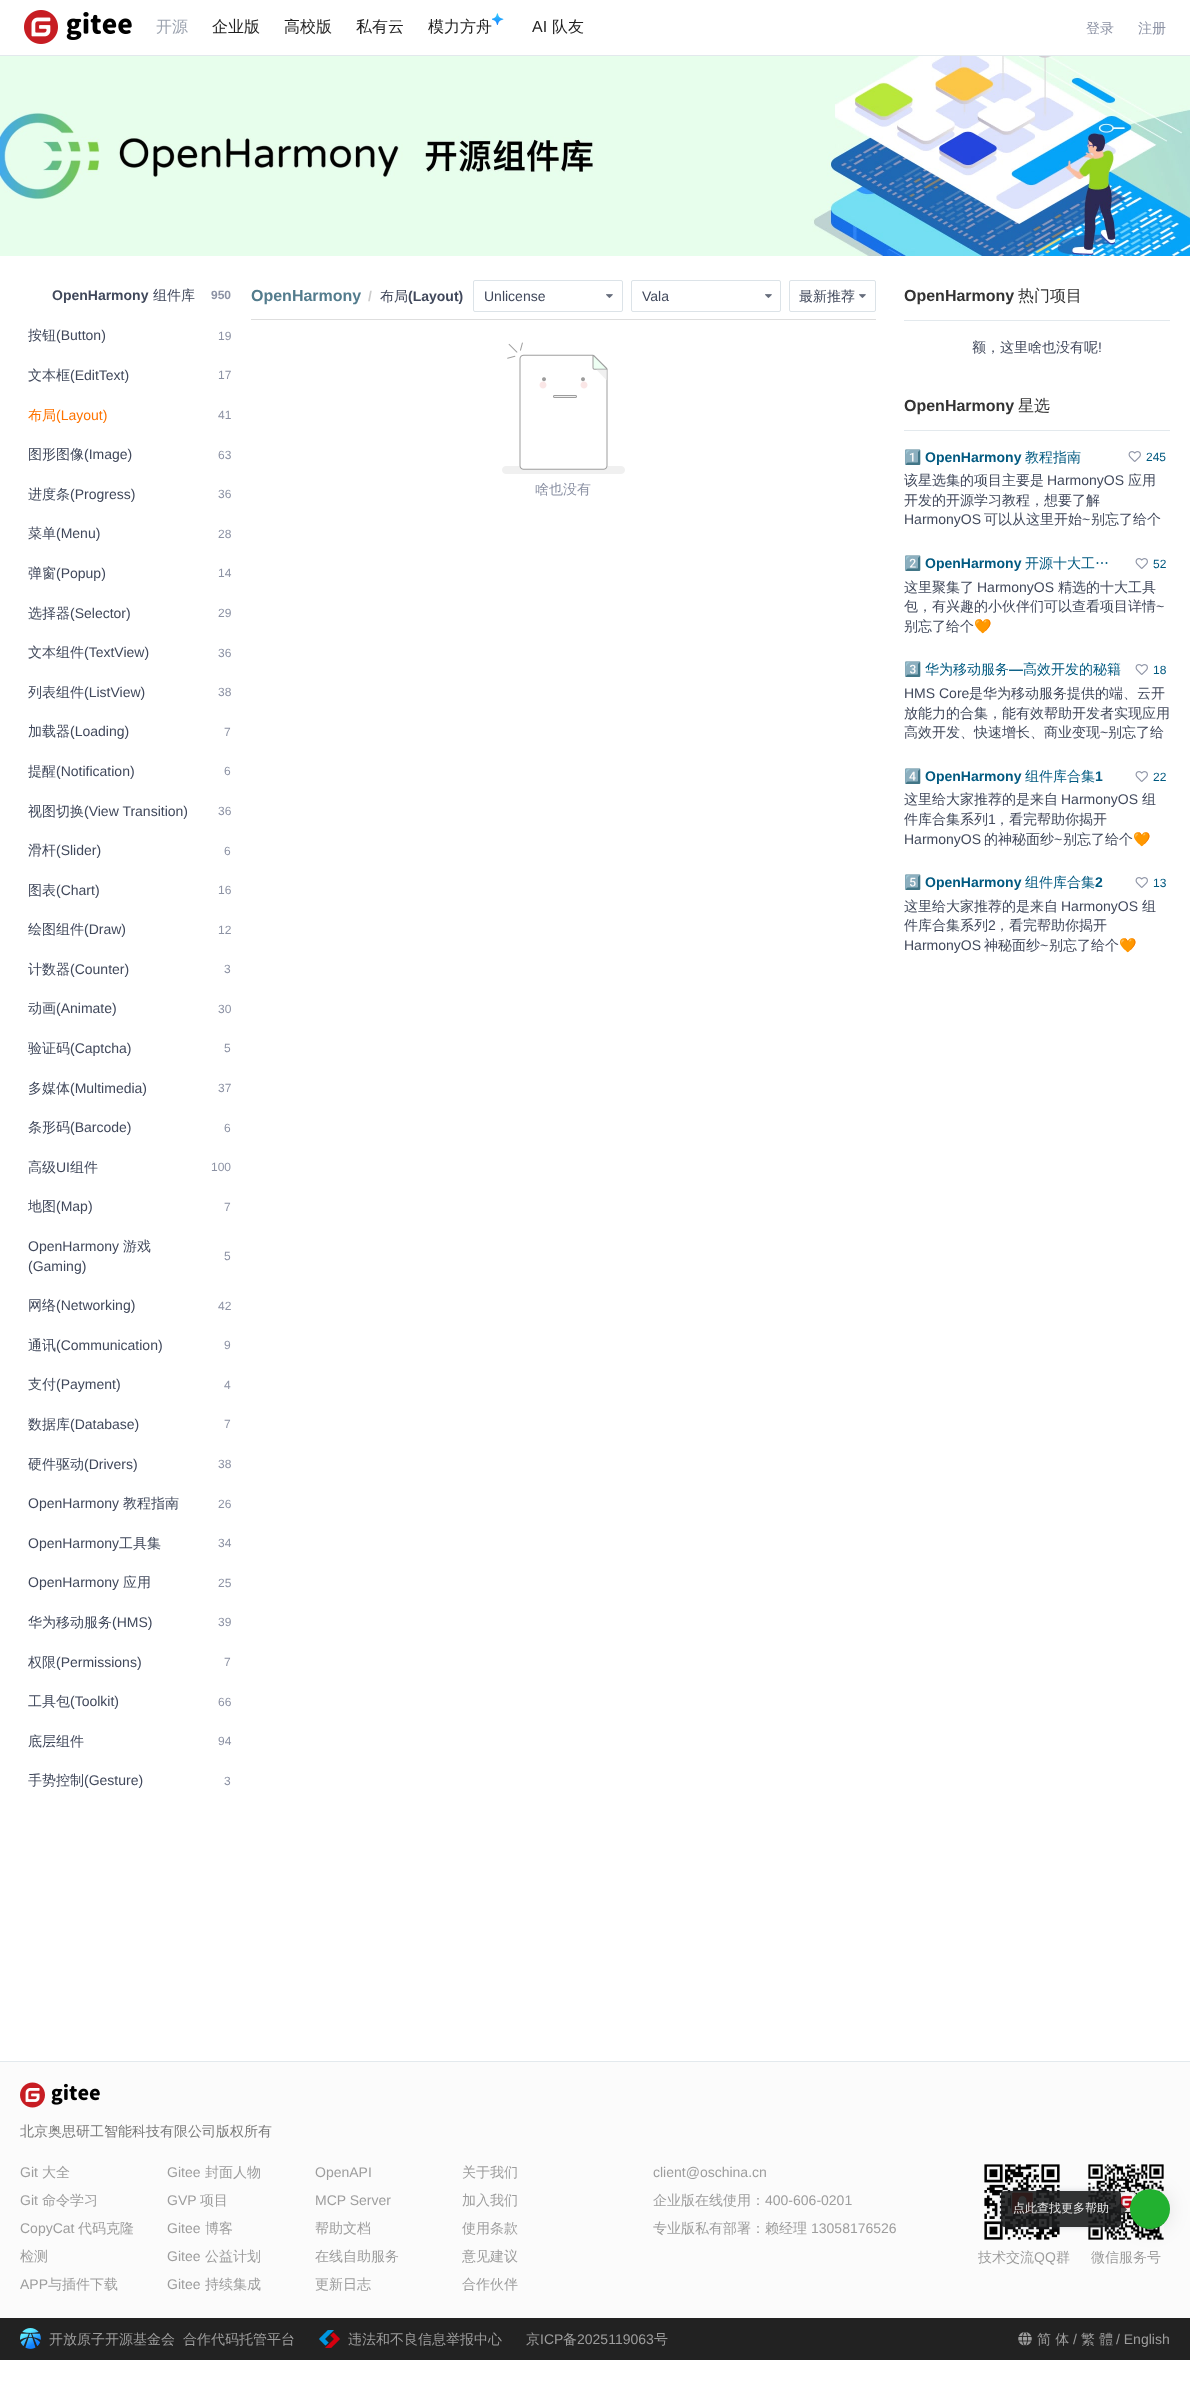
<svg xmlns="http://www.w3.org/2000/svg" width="1190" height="2401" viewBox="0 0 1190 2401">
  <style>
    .t1 { font: 500 16px WenQuanYi Zen Hei; fill: #9ca3af; }
    .t2 { font: 500 16px WenQuanYi Zen Hei; fill: #1f1f1f; }
    .t3 { font: 16px Liberation Sans; fill: #1f1f1f; }
    .t4 { font: 500 14px WenQuanYi Zen Hei; fill: #8c92a4; }
    .t5 { font: bold 14px Liberation Sans; fill: #40485b; }
    .t6 { font: 500 14px WenQuanYi Zen Hei; fill: #40485b; }
    .t7 { font: bold 12px Liberation Sans; fill: #8c92a4; }
    .t8 { font: 14px Liberation Sans; fill: #40485b; }
    .t9 { font: 12px Liberation Sans; fill: #8c92a4; }
    .t10 { font: 500 14px WenQuanYi Zen Hei; fill: #fe7300; }
    .t11 { font: 14px Liberation Sans; fill: #fe7300; }
    .t12 { font: bold 16px Liberation Sans; fill: #537c8d; }
    .t13 { font: bold 14px Liberation Sans; fill: #ccc; }
    .t14 { font: bold 16px Liberation Sans; fill: #333; }
    .t15 { font: 500 16px WenQuanYi Zen Hei; fill: #333; }
    .t16 { font: bold 14px Noto Color Emoji; fill: #005980; }
    .t17 { font: bold 14px Liberation Sans; fill: #005980; }
    .t18 { font: 500 14px WenQuanYi Zen Hei; fill: #005980; }
    .t19 { font: 12px Liberation Sans; fill: #005980; }
    .t20 { font: 14px Noto Color Emoji; fill: #40485b; }
    .t21 { font: 500 14px WenQuanYi Zen Hei; fill: #7a7a7a; }
    .t22 { font: 14px Liberation Sans; fill: #9d9d9d; }
    .t23 { font: 500 14px WenQuanYi Zen Hei; fill: #9d9d9d; }
    .t24 { font: 500 12px WenQuanYi Zen Hei; fill: #eaeaea; }
  </style>
  <defs>
    <clipPath id="clip1"><rect x="904" y="448" width="177" height="19"/></clipPath>
    <clipPath id="clip2"><rect x="904" y="554" width="218" height="20"/></clipPath>
    <clipPath id="clip3"><rect x="904" y="660" width="217" height="20"/></clipPath>
    <clipPath id="clip4"><rect x="904" y="767" width="199" height="19"/></clipPath>
    <clipPath id="clip5"><rect x="904" y="873" width="199" height="20"/></clipPath>
    <clipPath id="clip6"><path d="M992 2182H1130V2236H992ZM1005 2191H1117C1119 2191 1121 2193 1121 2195V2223C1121 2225 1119 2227 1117 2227H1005C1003 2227 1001 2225 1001 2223V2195C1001 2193 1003 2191 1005 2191Z" clip-rule="evenodd"/></clipPath>
  </defs>
  <rect width="100%" height="100%" fill="#fff"/>
  <rect x="0" y="55" width="1190" height="1" fill="#e3e9ed"/>
  <image x="24" y="10" width="108" height="34" href="images/1.png"/>
  <text x="156" y="32" class="t1">开源</text>
  <text x="212" y="32" class="t2">企业版</text>
  <text x="284" y="32" class="t2">高校版</text>
  <text x="356" y="32" class="t2">私有云</text>
  <text x="428" y="32" class="t2">模力方舟</text>
  <image x="492" y="13" width="12" height="12" href="images/2.png"/>
  <text x="532" y="32" class="t3">AI</text>
  <text x="552" y="32" class="t2">队友</text>
  <text x="1086" y="33" class="t4">登录</text>
  <text x="1138" y="33" class="t4">注册</text>
  <image x="0" y="56" width="1190" height="200" href="images/3.png"/>
  <text x="52" y="300" class="t5">OpenHarmony</text>
  <text x="153" y="300" class="t6">组件库</text>
  <text x="211" y="299" class="t7">950</text>
  <text x="28" y="340" class="t6">按钮</text>
  <text x="56" y="340" class="t8">(Button)</text>
  <text x="218" y="340" class="t9">19</text>
  <text x="28" y="380" class="t6">文本框</text>
  <text x="70" y="380" class="t8">(EditText)</text>
  <text x="218" y="379" class="t9">17</text>
  <text x="28" y="420" class="t10">布局</text>
  <text x="56" y="420" class="t11">(Layout)</text>
  <text x="218" y="419" class="t9">41</text>
  <text x="28" y="459" class="t6">图形图像</text>
  <text x="84" y="459" class="t8">(Image)</text>
  <text x="218" y="459" class="t9">63</text>
  <text x="28" y="499" class="t6">进度条</text>
  <text x="70" y="499" class="t8">(Progress)</text>
  <text x="218" y="498" class="t9">36</text>
  <text x="28" y="538" class="t6">菜单</text>
  <text x="56" y="538" class="t8">(Menu)</text>
  <text x="218" y="538" class="t9">28</text>
  <text x="28" y="578" class="t6">弹窗</text>
  <text x="56" y="578" class="t8">(Popup)</text>
  <text x="218" y="577" class="t9">14</text>
  <text x="28" y="618" class="t6">选择器</text>
  <text x="70" y="618" class="t8">(Selector)</text>
  <text x="218" y="617" class="t9">29</text>
  <text x="28" y="657" class="t6">文本组件</text>
  <text x="84" y="657" class="t8">(TextView)</text>
  <text x="218" y="657" class="t9">36</text>
  <text x="28" y="697" class="t6">列表组件</text>
  <text x="84" y="697" class="t8">(ListView)</text>
  <text x="218" y="696" class="t9">38</text>
  <text x="28" y="736" class="t6">加载器</text>
  <text x="70" y="736" class="t8">(Loading)</text>
  <text x="224" y="736" class="t9">7</text>
  <text x="28" y="776" class="t6">提醒</text>
  <text x="56" y="776" class="t8">(Notification)</text>
  <text x="224" y="775" class="t9">6</text>
  <text x="28" y="816" class="t6">视图切换</text>
  <text x="84" y="816" class="t8">(View Transition)</text>
  <text x="218" y="815" class="t9">36</text>
  <text x="28" y="855" class="t6">滑杆</text>
  <text x="56" y="855" class="t8">(Slider)</text>
  <text x="224" y="855" class="t9">6</text>
  <text x="28" y="895" class="t6">图表</text>
  <text x="56" y="895" class="t8">(Chart)</text>
  <text x="218" y="894" class="t9">16</text>
  <text x="28" y="934" class="t6">绘图组件</text>
  <text x="84" y="934" class="t8">(Draw)</text>
  <text x="218" y="934" class="t9">12</text>
  <text x="28" y="974" class="t6">计数器</text>
  <text x="70" y="974" class="t8">(Counter)</text>
  <text x="224" y="973" class="t9">3</text>
  <text x="28" y="1013" class="t6">动画</text>
  <text x="56" y="1013" class="t8">(Animate)</text>
  <text x="218" y="1013" class="t9">30</text>
  <text x="28" y="1053" class="t6">验证码</text>
  <text x="70" y="1053" class="t8">(Captcha)</text>
  <text x="224" y="1052" class="t9">5</text>
  <text x="28" y="1093" class="t6">多媒体</text>
  <text x="70" y="1093" class="t8">(Multimedia)</text>
  <text x="218" y="1092" class="t9">37</text>
  <text x="28" y="1132" class="t6">条形码</text>
  <text x="70" y="1132" class="t8">(Barcode)</text>
  <text x="224" y="1132" class="t9">6</text>
  <text x="28" y="1172" class="t6">高级</text>
  <text x="56" y="1172" class="t8">UI</text>
  <text x="70" y="1172" class="t6">组件</text>
  <text x="211" y="1171" class="t9">100</text>
  <text x="28" y="1211" class="t6">地图</text>
  <text x="56" y="1211" class="t8">(Map)</text>
  <text x="224" y="1211" class="t9">7</text>
  <text x="28" y="1251" class="t8">OpenHarmony</text>
  <text x="123" y="1251" class="t6">游戏</text>
  <text x="28" y="1271" class="t8">(Gaming)</text>
  <text x="224" y="1260" class="t9">5</text>
  <text x="28" y="1310" class="t6">网络</text>
  <text x="56" y="1310" class="t8">(Networking)</text>
  <text x="218" y="1310" class="t9">42</text>
  <text x="28" y="1350" class="t6">通讯</text>
  <text x="56" y="1350" class="t8">(Communication)</text>
  <text x="224" y="1349" class="t9">9</text>
  <text x="28" y="1389" class="t6">支付</text>
  <text x="56" y="1389" class="t8">(Payment)</text>
  <text x="224" y="1389" class="t9">4</text>
  <text x="28" y="1429" class="t6">数据库</text>
  <text x="70" y="1429" class="t8">(Database)</text>
  <text x="224" y="1428" class="t9">7</text>
  <text x="28" y="1469" class="t6">硬件驱动</text>
  <text x="84" y="1469" class="t8">(Drivers)</text>
  <text x="218" y="1468" class="t9">38</text>
  <text x="28" y="1508" class="t8">OpenHarmony</text>
  <text x="123" y="1508" class="t6">教程指南</text>
  <text x="218" y="1508" class="t9">26</text>
  <text x="28" y="1548" class="t8">OpenHarmony</text>
  <text x="119" y="1548" class="t6">工具集</text>
  <text x="218" y="1547" class="t9">34</text>
  <text x="28" y="1587" class="t8">OpenHarmony</text>
  <text x="123" y="1587" class="t6">应用</text>
  <text x="218" y="1587" class="t9">25</text>
  <text x="28" y="1627" class="t6">华为移动服务</text>
  <text x="112" y="1627" class="t8">(HMS)</text>
  <text x="218" y="1626" class="t9">39</text>
  <text x="28" y="1667" class="t6">权限</text>
  <text x="56" y="1667" class="t8">(Permissions)</text>
  <text x="224" y="1666" class="t9">7</text>
  <text x="28" y="1706" class="t6">工具包</text>
  <text x="70" y="1706" class="t8">(Toolkit)</text>
  <text x="218" y="1706" class="t9">66</text>
  <text x="28" y="1746" class="t6">底层组件</text>
  <text x="218" y="1745" class="t9">94</text>
  <text x="28" y="1785" class="t6">手势控制</text>
  <text x="84" y="1785" class="t8">(Gesture)</text>
  <text x="224" y="1785" class="t9">3</text>
  <text x="251" y="301" class="t12">OpenHarmony</text>
  <text x="368" y="301" class="t13">/</text>
  <text x="380" y="301" class="t6">布局</text>
  <text x="408" y="301" class="t5">(Layout)</text>
  <rect x="473.5" y="280.5" width="149" height="31" rx="1.5" fill="none" stroke="#dce3e8"/>
  <text x="484" y="301" class="t8">Unlicense</text>
  <image x="606" y="294" width="7" height="4" href="images/4.png"/>
  <rect x="631.5" y="280.5" width="149" height="31" rx="1.5" fill="none" stroke="#dce3e8"/>
  <text x="642" y="301" class="t8">Vala</text>
  <image x="765" y="294" width="7" height="4" href="images/4.png"/>
  <rect x="789.5" y="280.5" width="86" height="31" rx="1.5" fill="none" stroke="#dce3e8"/>
  <text x="799" y="301" class="t6">最新推荐</text>
  <image x="859" y="294" width="7" height="4" href="images/4.png"/>
  <rect x="251" y="319" width="625" height="1" fill="#dedede"/>
  <image x="502" y="342" width="123" height="132" href="images/5.png"/>
  <text x="535" y="494" class="t4">啥也没有</text>
  <rect x="904" y="320" width="266" height="1" fill="#e3e9ed"/>
  <text x="904" y="301" class="t14">OpenHarmony</text>
  <text x="1018" y="301" class="t15">热门项目</text>
  <text x="972" y="352" class="t6">额，这里啥也没有呢</text>
  <text x="1098" y="352" class="t8">!</text>
  <rect x="904" y="430" width="266" height="1" fill="#e3e9ed"/>
  <text x="904" y="411" class="t14">OpenHarmony</text>
  <text x="1018" y="411" class="t15">星选</text>
  <g clip-path="url(#clip1)">
    <text x="904" y="462" class="t16">1️⃣</text>
  </g>
  <text x="925" y="462" class="t17">OpenHarmony</text>
  <text x="1025" y="462" class="t18">教程指南</text>
  <image x="1128" y="451" width="13" height="11" href="images/6.png"/>
  <text x="1146" y="461" class="t19">245</text>
  <text x="904" y="485" class="t6">该星选集的项目主要是</text>
  <text x="1047" y="485" class="t8">HarmonyOS</text>
  <text x="1128" y="485" class="t6">应用</text>
  <text x="904" y="505" class="t6">开发的开源学习教程，想要了解</text>
  <text x="904" y="524" class="t8">HarmonyOS</text>
  <text x="984" y="524" class="t6">可以从这里开始</text>
  <text x="1082" y="524" class="t8">~</text>
  <text x="1091" y="524" class="t6">别忘了给个</text>
  <g clip-path="url(#clip2)">
    <text x="904" y="568" class="t16">2️⃣</text>
  </g>
  <text x="925" y="568" class="t17">OpenHarmony</text>
  <text x="1025" y="568" class="t18">开源十大工…</text>
  <image x="1135" y="558" width="13" height="11" href="images/6.png"/>
  <text x="1153" y="568" class="t19">52</text>
  <text x="904" y="592" class="t6">这里聚集了</text>
  <text x="977" y="592" class="t8">HarmonyOS</text>
  <text x="1058" y="592" class="t6">精选的十大工具</text>
  <text x="904" y="611" class="t6">包，有兴趣的小伙伴们可以查看项目详情</text>
  <text x="1156" y="611" class="t8">~</text>
  <text x="904" y="631" class="t6">别忘了给个</text>
  <text x="974" y="631" class="t20">🧡</text>
  <g clip-path="url(#clip3)">
    <text x="904" y="674" class="t16">3️⃣</text>
  </g>
  <text x="925" y="674" class="t18">华为移动服务</text>
  <text x="1009" y="674" class="t17">—</text>
  <text x="1023" y="674" class="t18">高效开发的秘籍</text>
  <image x="1135" y="664" width="13" height="11" href="images/6.png"/>
  <text x="1153" y="674" class="t19">18</text>
  <text x="904" y="698" class="t8">HMS Core</text>
  <text x="969" y="698" class="t6">是华为移动服务提供的端、云开</text>
  <text x="904" y="718" class="t6">放能力的合集，能有效帮助开发者实现应用</text>
  <text x="904" y="737" class="t6">高效开发、快速增长、商业变现</text>
  <text x="1100" y="737" class="t8">~</text>
  <text x="1108" y="737" class="t6">别忘了给</text>
  <g clip-path="url(#clip4)">
    <text x="904" y="781" class="t16">4️⃣</text>
  </g>
  <text x="925" y="781" class="t17">OpenHarmony</text>
  <text x="1025" y="781" class="t18">组件库合集</text>
  <text x="1095" y="781" class="t17">1</text>
  <image x="1135" y="771" width="13" height="11" href="images/6.png"/>
  <text x="1153" y="781" class="t19">22</text>
  <text x="904" y="804" class="t6">这里给大家推荐的是来自</text>
  <text x="1061" y="804" class="t8">HarmonyOS</text>
  <text x="1142" y="804" class="t6">组</text>
  <text x="904" y="824" class="t6">件库合集系列</text>
  <text x="988" y="824" class="t8">1</text>
  <text x="995" y="824" class="t6">，看完帮助你揭开</text>
  <text x="904" y="844" class="t8">HarmonyOS</text>
  <text x="984" y="844" class="t6">的神秘面纱</text>
  <text x="1054" y="844" class="t8">~</text>
  <text x="1063" y="844" class="t6">别忘了给个</text>
  <text x="1133" y="844" class="t20">🧡</text>
  <g clip-path="url(#clip5)">
    <text x="904" y="887" class="t16">5️⃣</text>
  </g>
  <text x="925" y="887" class="t17">OpenHarmony</text>
  <text x="1025" y="887" class="t18">组件库合集</text>
  <text x="1095" y="887" class="t17">2</text>
  <image x="1135" y="877" width="13" height="11" href="images/6.png"/>
  <text x="1153" y="887" class="t19">13</text>
  <text x="904" y="911" class="t6">这里给大家推荐的是来自</text>
  <text x="1061" y="911" class="t8">HarmonyOS</text>
  <text x="1142" y="911" class="t6">组</text>
  <text x="904" y="930" class="t6">件库合集系列</text>
  <text x="988" y="930" class="t8">2</text>
  <text x="995" y="930" class="t6">，看完帮助你揭开</text>
  <text x="904" y="950" class="t8">HarmonyOS</text>
  <text x="984" y="950" class="t6">神秘面纱</text>
  <text x="1040" y="950" class="t8">~</text>
  <text x="1049" y="950" class="t6">别忘了给个</text>
  <text x="1119" y="950" class="t20">🧡</text>
  <rect x="0" y="2062" width="1190" height="256" fill="#fbfbfb"/>
  <rect x="0" y="2061" width="1190" height="1" fill="#e3e9ed"/>
  <image x="20" y="2082" width="80" height="26" href="images/7.png"/>
  <text x="20" y="2136" class="t21">北京奥思研工智能科技有限公司版权所有</text>
  <text x="20" y="2177" class="t22">Git</text>
  <text x="42" y="2177" class="t23">大全</text>
  <text x="20" y="2205" class="t22">Git</text>
  <text x="42" y="2205" class="t23">命令学习</text>
  <text x="20" y="2233" class="t22">CopyCat</text>
  <text x="78" y="2233" class="t23">代码克隆</text>
  <text x="20" y="2261" class="t23">检测</text>
  <text x="20" y="2289" class="t22">APP</text>
  <text x="48" y="2289" class="t23">与插件下载</text>
  <text x="167" y="2177" class="t22">Gitee</text>
  <text x="205" y="2177" class="t23">封面人物</text>
  <text x="167" y="2205" class="t22">GVP</text>
  <text x="200" y="2205" class="t23">项目</text>
  <text x="167" y="2233" class="t22">Gitee</text>
  <text x="205" y="2233" class="t23">博客</text>
  <text x="167" y="2261" class="t22">Gitee</text>
  <text x="205" y="2261" class="t23">公益计划</text>
  <text x="167" y="2289" class="t22">Gitee</text>
  <text x="205" y="2289" class="t23">持续集成</text>
  <text x="315" y="2177" class="t22">OpenAPI</text>
  <text x="315" y="2205" class="t22">MCP Server</text>
  <text x="315" y="2233" class="t23">帮助文档</text>
  <text x="315" y="2261" class="t23">在线自助服务</text>
  <text x="315" y="2289" class="t23">更新日志</text>
  <text x="462" y="2177" class="t23">关于我们</text>
  <text x="462" y="2205" class="t23">加入我们</text>
  <text x="462" y="2233" class="t23">使用条款</text>
  <text x="462" y="2261" class="t23">意见建议</text>
  <text x="462" y="2289" class="t23">合作伙伴</text>
  <text x="653" y="2177" class="t22">client@oschina.cn</text>
  <text x="653" y="2205" class="t23">企业版在线使用：</text>
  <text x="765" y="2205" class="t22">400-606-0201</text>
  <text x="653" y="2233" class="t23">专业版私有部署：赖经理</text>
  <text x="811" y="2233" class="t22">13058176526</text>
  <image x="984" y="2164" width="76" height="76" href="images/8.png"/>
  <text x="978" y="2262" class="t23">技术交流</text>
  <text x="1034" y="2262" class="t22">QQ</text>
  <text x="1056" y="2262" class="t23">群</text>
  <image x="1088" y="2164" width="76" height="76" href="images/9.png"/>
  <text x="1091" y="2262" class="t23">微信服务号</text>
  <rect x="0" y="2318" width="1190" height="42" fill="#222"/>
  <image x="20" y="2328" width="21" height="21" href="images/10.png"/>
  <text x="49" y="2344" class="t23">开放原子开源基金会</text>
  <text x="183" y="2344" class="t23">合作代码托管平台</text>
  <image x="319" y="2330" width="21" height="18" href="images/11.png"/>
  <text x="348" y="2344" class="t23">违法和不良信息举报中心</text>
  <text x="526" y="2344" class="t23">京</text>
  <text x="540" y="2344" class="t22">ICP</text>
  <text x="563" y="2344" class="t23">备</text>
  <text x="577" y="2344" class="t22">2025119063</text>
  <text x="654" y="2344" class="t23">号</text>
  <image x="1018" y="2332" width="14" height="14" href="images/12.png"/>
  <text x="1037" y="2344" class="t23">简 体</text>
  <text x="1073" y="2344" class="t22">/</text>
  <text x="1081" y="2344" class="t23">繁 體</text>
  <text x="1116" y="2344" class="t22">/ English</text>
  <rect x="1130" y="2190" width="40" height="40" rx="20" fill="#0000001a" filter="blur(10px)"/>
  <circle cx="1150" cy="2209" r="20" fill="#22b130"/>
  <path d="M1131 2202C1122 2225 1158 2241 1168 2217C1170 2212 1171 2206 1169 2202C1172 2213 1166 2228 1150 2228C1134 2228 1128 2213 1131 2202Z" fill="#0000001a"/>
  <g clip-path="url(#clip6)">
    <rect x="1002" y="2192" width="118" height="34" rx="3" fill="#8c92a373" filter="blur(3px)"/>
  </g>
  <rect x="1001" y="2191" width="120" height="36" rx="4" fill="#1b1c1de6"/>
  <text x="1013" y="2212" class="t24">点此查找更多帮助</text>
  <path d="M1122 2203L1121 2204L1127 2209.5L1121 2215L1122 2216L1128 2209.5Z" fill="#b3b3b329"/>
  <path d="M1120.5 2203L1127 2209.5L1120.5 2216L1114 2209.5Z" fill="#1b1c1dcf"/>
</svg>
